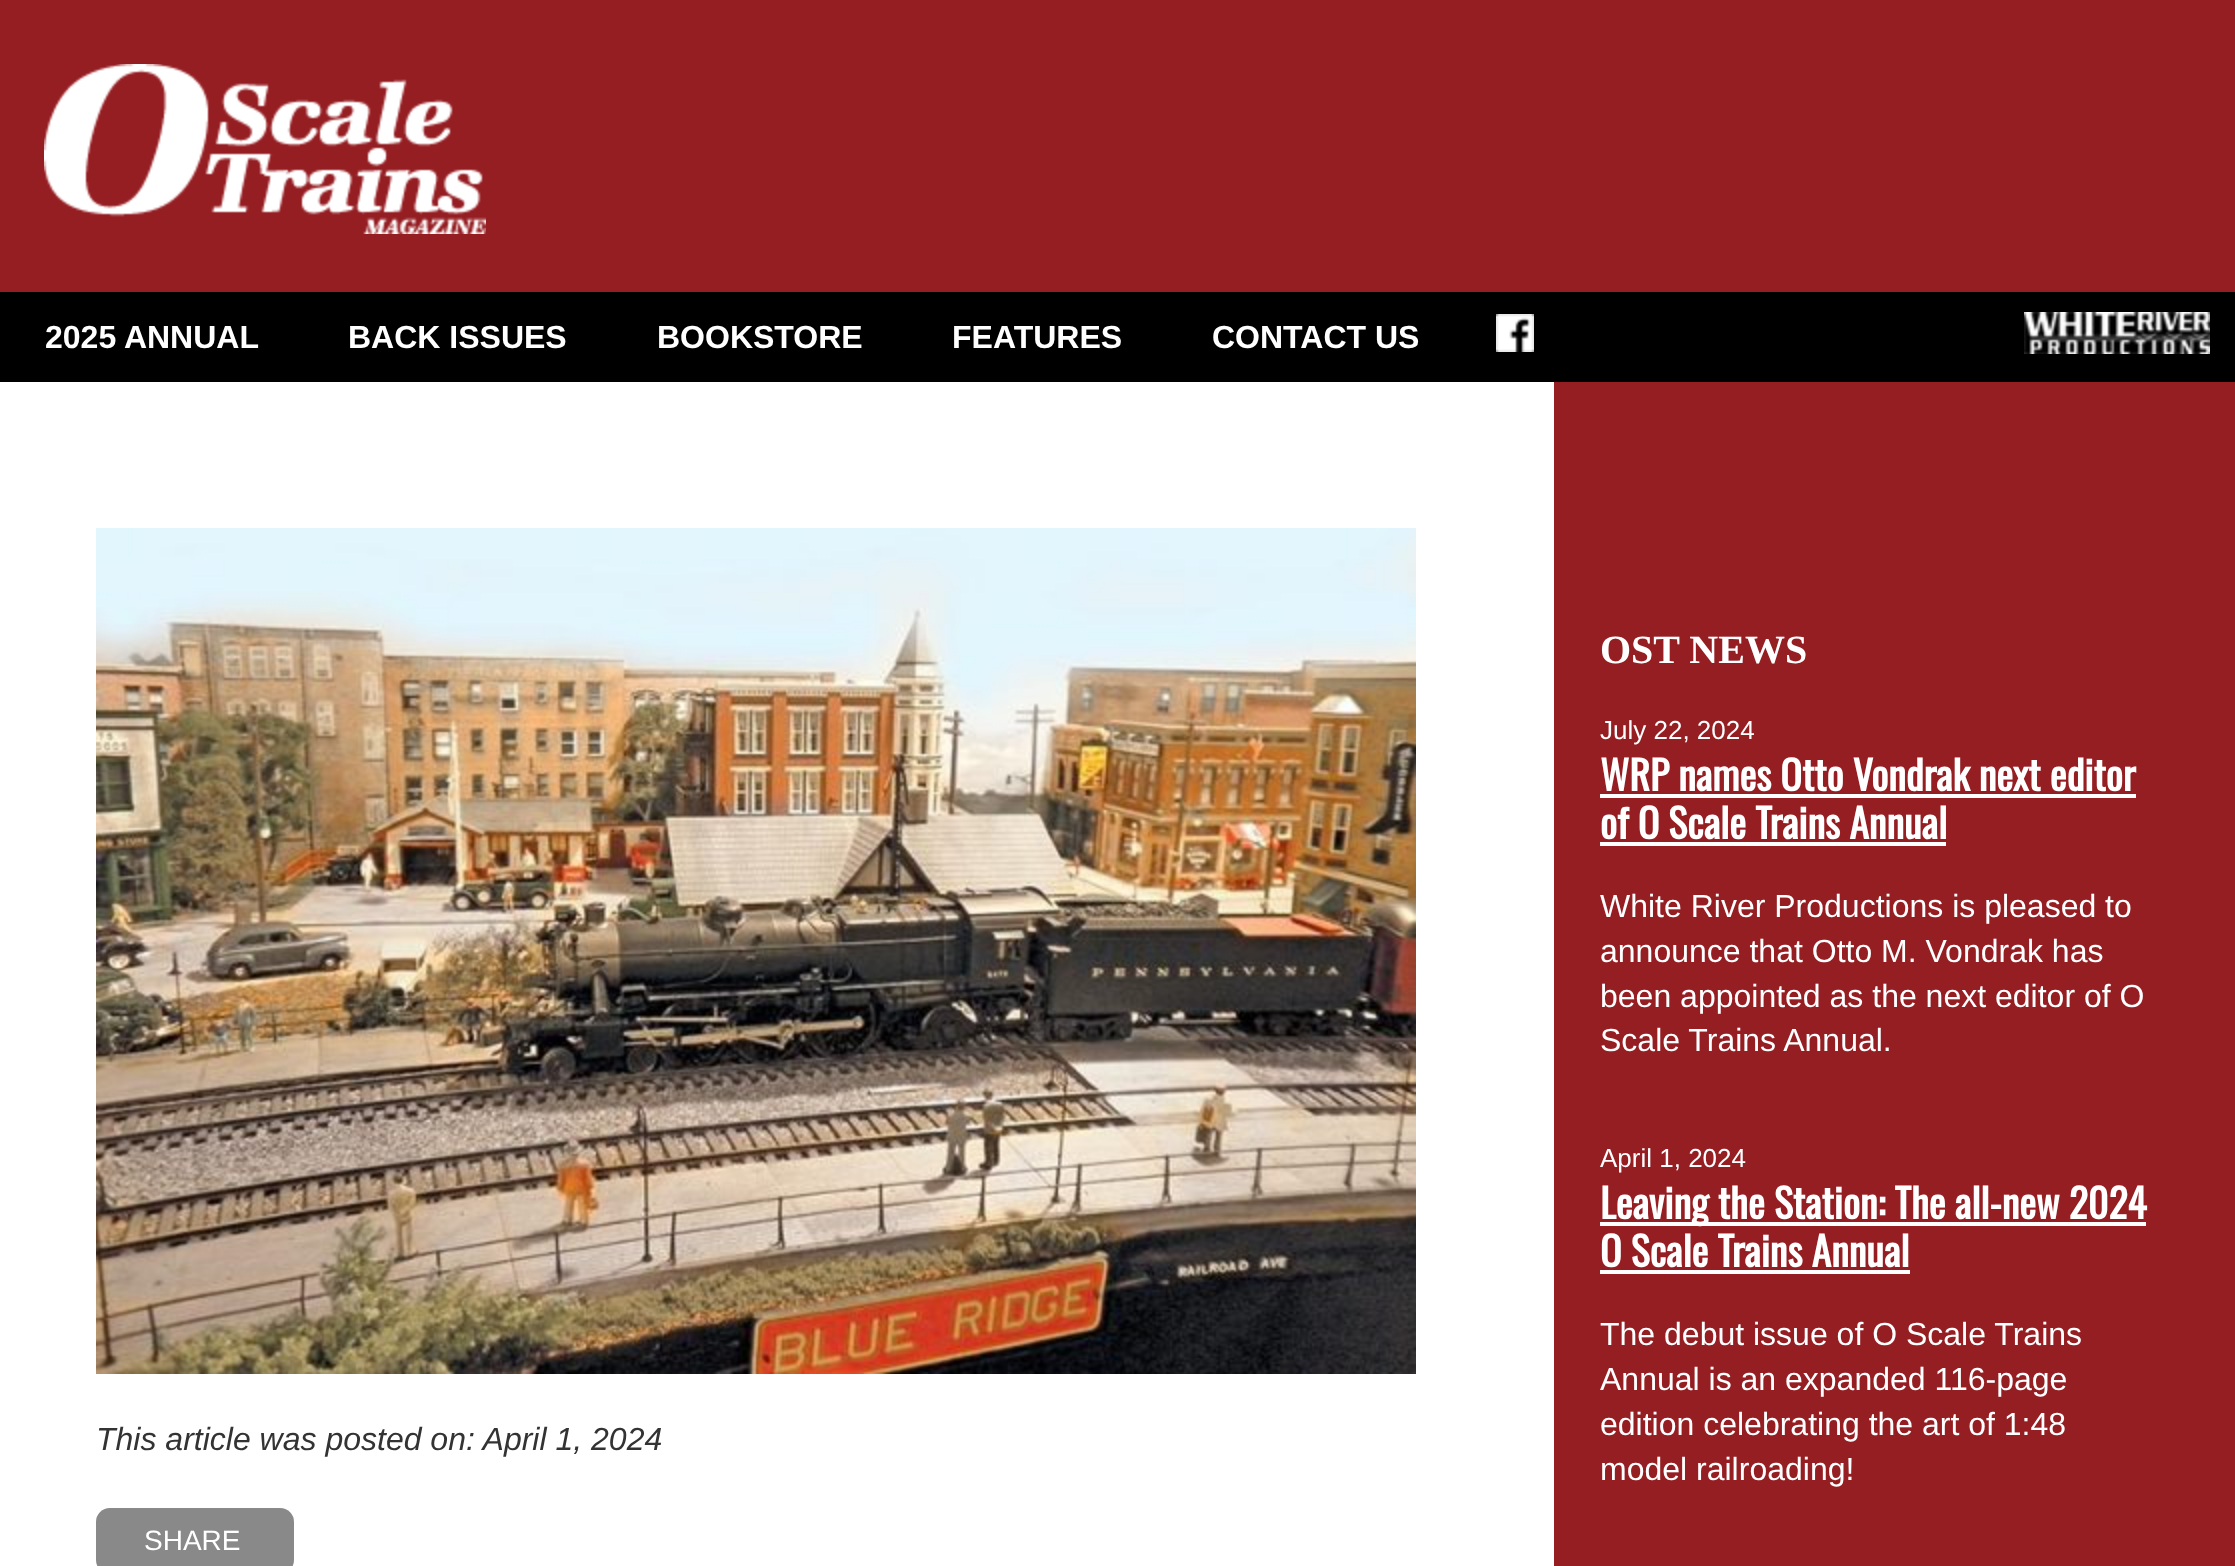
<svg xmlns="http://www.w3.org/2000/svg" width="2235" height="1566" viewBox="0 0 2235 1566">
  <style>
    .t1 { font: bold 32px Liberation Sans; fill: #fff; }
    .t2 { font: italic 32px Liberation Sans; fill: #333; }
    .t3 { font: 28px Liberation Sans; fill: #fff; }
    .t4 { font: bold 40px Liberation Serif; fill: #fff; }
    .t5 { font: 26px Liberation Sans; fill: #fff; }
    .t6 { font: bold 40px Oswald; fill: #fff; }
    .t7 { font: 32px Liberation Sans; fill: #fff; }
  </style>
  <rect width="100%" height="100%" fill="#951e23"/>
  <image x="44" y="64" width="442" height="170" href="images/1.png"/>
  <rect x="0" y="292" width="2235" height="90" fill="#000"/>
  <text x="45" y="348" class="t1">2025 ANNUAL</text>
  <text x="348" y="348" class="t1">BACK ISSUES</text>
  <text x="657" y="348" class="t1">BOOKSTORE</text>
  <text x="952" y="348" class="t1">FEATURES</text>
  <text x="1212" y="348" class="t1">CONTACT US</text>
  <image x="1496" y="314" width="38" height="38" href="images/2.png"/>
  <image x="2024" y="312" width="186" height="42" href="images/3.png"/>
  <rect x="0" y="382" width="1554" height="1184" fill="#fff"/>
  <image x="96" y="528" width="1320" height="846" href="images/4.png"/>
  <text x="96" y="1450" class="t2">This article was posted on: April 1, 2024</text>
  <rect x="96" y="1508" width="198" height="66" rx="14" fill="#898989"/>
  <text x="144" y="1550" class="t3">SHARE</text>
  <text x="1600" y="663" class="t4">OST NEWS</text>
  <text x="1600" y="739" class="t5">July 22, 2024</text>
  <text x="1600" y="791" class="t6">WRP names Otto Vondrak next editor</text>
  <rect x="1600" y="794" width="536" height="4" fill="#fff"/>
  <text x="1600" y="839" class="t6">of O Scale Trains Annual</text>
  <rect x="1600" y="842" width="346" height="4" fill="#fff"/>
  <text x="1600" y="917" class="t7">White River Productions is pleased to</text>
  <text x="1600" y="962" class="t7">announce that Otto M. Vondrak has</text>
  <text x="1600" y="1007" class="t7">been appointed as the next editor of O</text>
  <text x="1600" y="1051" class="t7">Scale Trains Annual.</text>
  <text x="1600" y="1167" class="t5">April 1, 2024</text>
  <rect x="1600" y="1222" width="546" height="4" fill="#fff"/>
  <text x="1600" y="1219" class="t6">Leaving the Station: The all-new 2024</text>
  <text x="1600" y="1267" class="t6">O Scale Trains Annual</text>
  <rect x="1600" y="1270" width="310" height="4" fill="#fff"/>
  <text x="1600" y="1345" class="t7">The debut issue of O Scale Trains</text>
  <text x="1600" y="1390" class="t7">Annual is an expanded 116-page</text>
  <text x="1600" y="1435" class="t7">edition celebrating the art of 1:48</text>
  <text x="1600" y="1480" class="t7">model railroading!</text>
</svg>
